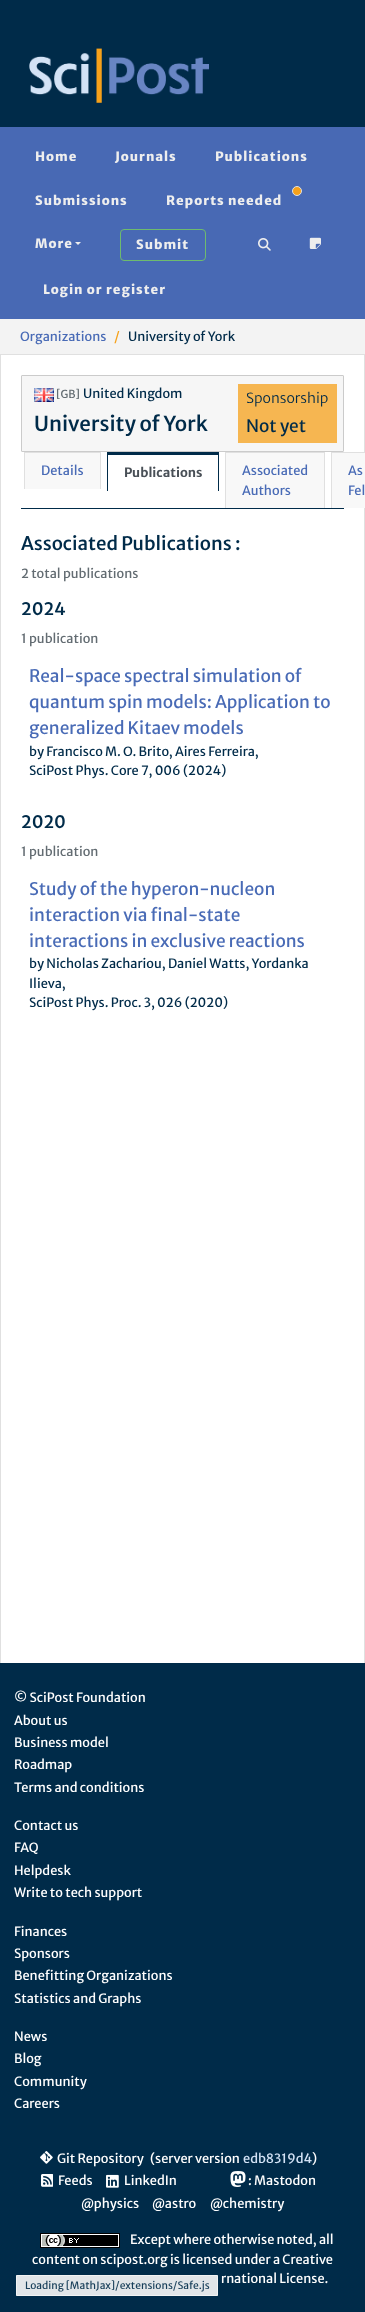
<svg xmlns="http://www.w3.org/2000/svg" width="365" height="2312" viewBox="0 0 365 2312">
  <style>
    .t1 { font: 800 12.8px Merriweather Sans; letter-spacing: 1px; fill: #eee; }
    .t2 { font: 12.8px Merriweather Sans; fill: #496bb6; }
    .t3 { font: 12.8px Merriweather Sans; fill: #f6a11a; }
    .t4 { font: 12.8px Merriweather Sans; fill: #002b49; }
    .t5 { font: 11px Merriweather Sans; fill: #636c72; }
    .t6 { font: 500 20.5px Merriweather Sans; fill: #002b49; }
    .t7 { font: 300 14px Merriweather Sans; fill: #002b49; }
    .t8 { font: 17.25px Merriweather Sans; fill: #002b49; }
    .t9 { font: bold 12.8px Merriweather Sans; fill: #495057; }
    .t10 { font: 500 18.5px Merriweather Sans; fill: #002b49; }
    .t11 { font: 12.8px Merriweather Sans; fill: #636c72; }
    .t12 { font: 500 17.25px Merriweather Sans; fill: #002b49; }
    .t13 { font: 17.25px Merriweather Sans; fill: #496bb6; }
    .t14 { font: 12.8px Merriweather Sans; fill: #fff; }
    .t15 { font: 12.8px Merriweather Sans; fill: #d3e3f6; }
    .t16 { font: 10.25px Merriweather Sans; fill: #173e59; }
  </style>
  <rect width="100%" height="100%" fill="#f3f3f3"/>
  <rect x="0" y="0" width="365" height="127" fill="#002b49"/>
  <image x="29" y="48" width="180" height="55" href="images/1.png"/>
  <rect x="0" y="127" width="365" height="192" fill="#4869b4"/>
  <text x="35" y="161" class="t1">Home</text>
  <text x="115" y="161" class="t1">Journals</text>
  <text x="215" y="161" class="t1">Publications</text>
  <text x="35" y="205" class="t1">Submissions</text>
  <circle cx="297" cy="191" r="4.5" fill="#f6a11a" stroke="#dee2e6"/>
  <text x="166" y="205" class="t1">Reports needed</text>
  <text x="35" y="248" class="t1">More</text>
  <path d="M75 242H81L78 245Z" fill="#eee"/>
  <rect x="120.5" y="229.5" width="85" height="31" rx="3.5" fill="none" stroke="#6ebb6e"/>
  <text x="136" y="249" class="t1">Submit</text>
  <image x="258" y="238" width="13" height="13" href="images/2.png"/>
  <image x="309" y="237" width="12" height="12" href="images/3.png"/>
  <text x="43" y="294" class="t1">Login or register</text>
  <text x="20" y="341" class="t2">Organizations</text>
  <text x="114" y="341" class="t3">/</text>
  <text x="128" y="341" class="t4">University of York</text>
  <rect x="1" y="355" width="363" height="1308" fill="#fff"/>
  <rect x="0" y="354" width="365" height="1" fill="#e0e0e0"/>
  <rect x="364" y="354" width="1" height="1309" fill="#e0e0e0"/>
  <rect x="0" y="354" width="1" height="1309" fill="#e0e0e0"/>
  <rect x="21.5" y="375.5" width="322" height="76" rx="0.5" fill="#f6f6f6" stroke="#cbcbcb"/>
  <image x="34" y="388" width="20" height="14" href="images/4.png"/>
  <text x="56" y="398" class="t5">[GB]</text>
  <text x="83" y="398" class="t4">United Kingdom</text>
  <text x="34" y="431" class="t6">University of York</text>
  <rect x="238" y="384" width="99" height="59" fill="#f6b651"/>
  <text x="246" y="403" class="t7">Sponsorship</text>
  <text x="246" y="432" class="t8">Not yet</text>
  <rect x="21" y="508" width="323" height="1" fill="#002b49"/>
  <rect x="25" y="453" width="75" height="36" fill="#f8f8f8"/>
  <rect x="24" y="452" width="77" height="1" fill="#e0e0e0"/>
  <rect x="100" y="452" width="1" height="37" fill="#e0e0e0"/>
  <rect x="24" y="452" width="1" height="37" fill="#e0e0e0"/>
  <text x="41" y="475" class="t2">Details</text>
  <rect x="107" y="452" width="112" height="3" fill="#002b49"/>
  <rect x="218" y="452" width="1" height="39" fill="#002b49"/>
  <rect x="107" y="452" width="1" height="39" fill="#002b49"/>
  <text x="124" y="477" class="t9">Publications</text>
  <rect x="226" y="453" width="98" height="55" fill="#f8f8f8"/>
  <rect x="225" y="452" width="100" height="1" fill="#e0e0e0"/>
  <rect x="324" y="452" width="1" height="56" fill="#e0e0e0"/>
  <rect x="225" y="452" width="1" height="56" fill="#e0e0e0"/>
  <text x="242" y="475" class="t2">Associated</text>
  <text x="242" y="495" class="t2">Authors</text>
  <rect x="332" y="453" width="33" height="55" fill="#f8f8f8"/>
  <rect x="331" y="452" width="34" height="1" fill="#e0e0e0"/>
  <rect x="331" y="452" width="1" height="56" fill="#e0e0e0"/>
  <text x="348" y="475" class="t2">As</text>
  <text x="348" y="495" class="t2">Fel</text>
  <text x="21" y="550" class="t10">Associated Publications :</text>
  <text x="21" y="578" class="t11">2 total publications</text>
  <text x="21" y="615" class="t12">2024</text>
  <text x="21" y="643" class="t11">1 publication</text>
  <text x="29" y="682" class="t13">Real-space spectral simulation of</text>
  <text x="29" y="708" class="t13">quantum spin models: Application to</text>
  <text x="29" y="734" class="t13">generalized Kitaev models</text>
  <text x="29" y="756" class="t4">by Francisco M. O. Brito, Aires Ferreira,</text>
  <text x="29" y="775" class="t4">SciPost Phys. Core 7, 006 (2024)</text>
  <text x="21" y="828" class="t12">2020</text>
  <text x="21" y="856" class="t11">1 publication</text>
  <text x="29" y="895" class="t13">Study of the hyperon-nucleon</text>
  <text x="29" y="921" class="t13">interaction via final-state</text>
  <text x="29" y="947" class="t13">interactions in exclusive reactions</text>
  <text x="29" y="968" class="t4">by Nicholas Zachariou, Daniel Watts, Yordanka</text>
  <text x="29" y="988" class="t4">Ilieva,</text>
  <text x="29" y="1007" class="t4">SciPost Phys. Proc. 3, 026 (2020)</text>
  <rect x="0" y="1663" width="365" height="649" fill="#002b49"/>
  <text x="14" y="1702" class="t14">© SciPost Foundation</text>
  <text x="14" y="1725" class="t14">About us</text>
  <text x="14" y="1747" class="t14">Business model</text>
  <text x="14" y="1769" class="t14">Roadmap</text>
  <text x="14" y="1792" class="t14">Terms and conditions</text>
  <text x="14" y="1830" class="t14">Contact us</text>
  <text x="14" y="1852" class="t14">FAQ</text>
  <text x="14" y="1875" class="t14">Helpdesk</text>
  <text x="14" y="1897" class="t14">Write to tech support</text>
  <text x="14" y="1936" class="t14">Finances</text>
  <text x="14" y="1958" class="t14">Sponsors</text>
  <text x="14" y="1980" class="t14">Benefitting Organizations</text>
  <text x="14" y="2003" class="t14">Statistics and Graphs</text>
  <text x="14" y="2041" class="t14">News</text>
  <text x="14" y="2063" class="t14">Blog</text>
  <text x="14" y="2086" class="t14">Community</text>
  <text x="14" y="2108" class="t14">Careers</text>
  <image x="40" y="2151" width="13" height="13" href="images/5.png"/>
  <text x="57" y="2163" class="t14">Git Repository</text>
  <text x="150" y="2163" class="t14">(server version</text>
  <text x="243" y="2163" class="t15">edb8319d4</text>
  <text x="312" y="2163" class="t14">)</text>
  <image x="41" y="2174" width="12" height="13" href="images/6.png"/>
  <text x="58" y="2185" class="t14">Feeds</text>
  <image x="106" y="2174" width="13" height="14" href="images/7.png"/>
  <text x="124" y="2185" class="t14">LinkedIn</text>
  <image x="230" y="2171" width="16" height="16" href="images/8.png"/>
  <text x="248" y="2185" class="t14">: Mastodon</text>
  <text x="81" y="2208" class="t14">@physics</text>
  <text x="152" y="2208" class="t14">@astro</text>
  <text x="210" y="2208" class="t14">@chemistry</text>
  <image x="40" y="2233" width="80" height="15" href="images/9.png"/>
  <text x="130" y="2244" class="t14">Except where otherwise noted, all</text>
  <text x="32" y="2264" class="t14">content on scipost.org is licensed under a Creative</text>
  <text x="221" y="2283" class="t14">rnational License.</text>
  <rect x="16" y="2275" width="202" height="21" rx="1" fill="#f9f9f9e6"/>
  <rect x="16.5" y="2275.5" width="201" height="20" rx="0.5" fill="none" stroke="#f4f4f4e6"/>
  <text x="25" y="2289" class="t16">Loading [MathJax]/extensions/Safe.js</text>
</svg>
